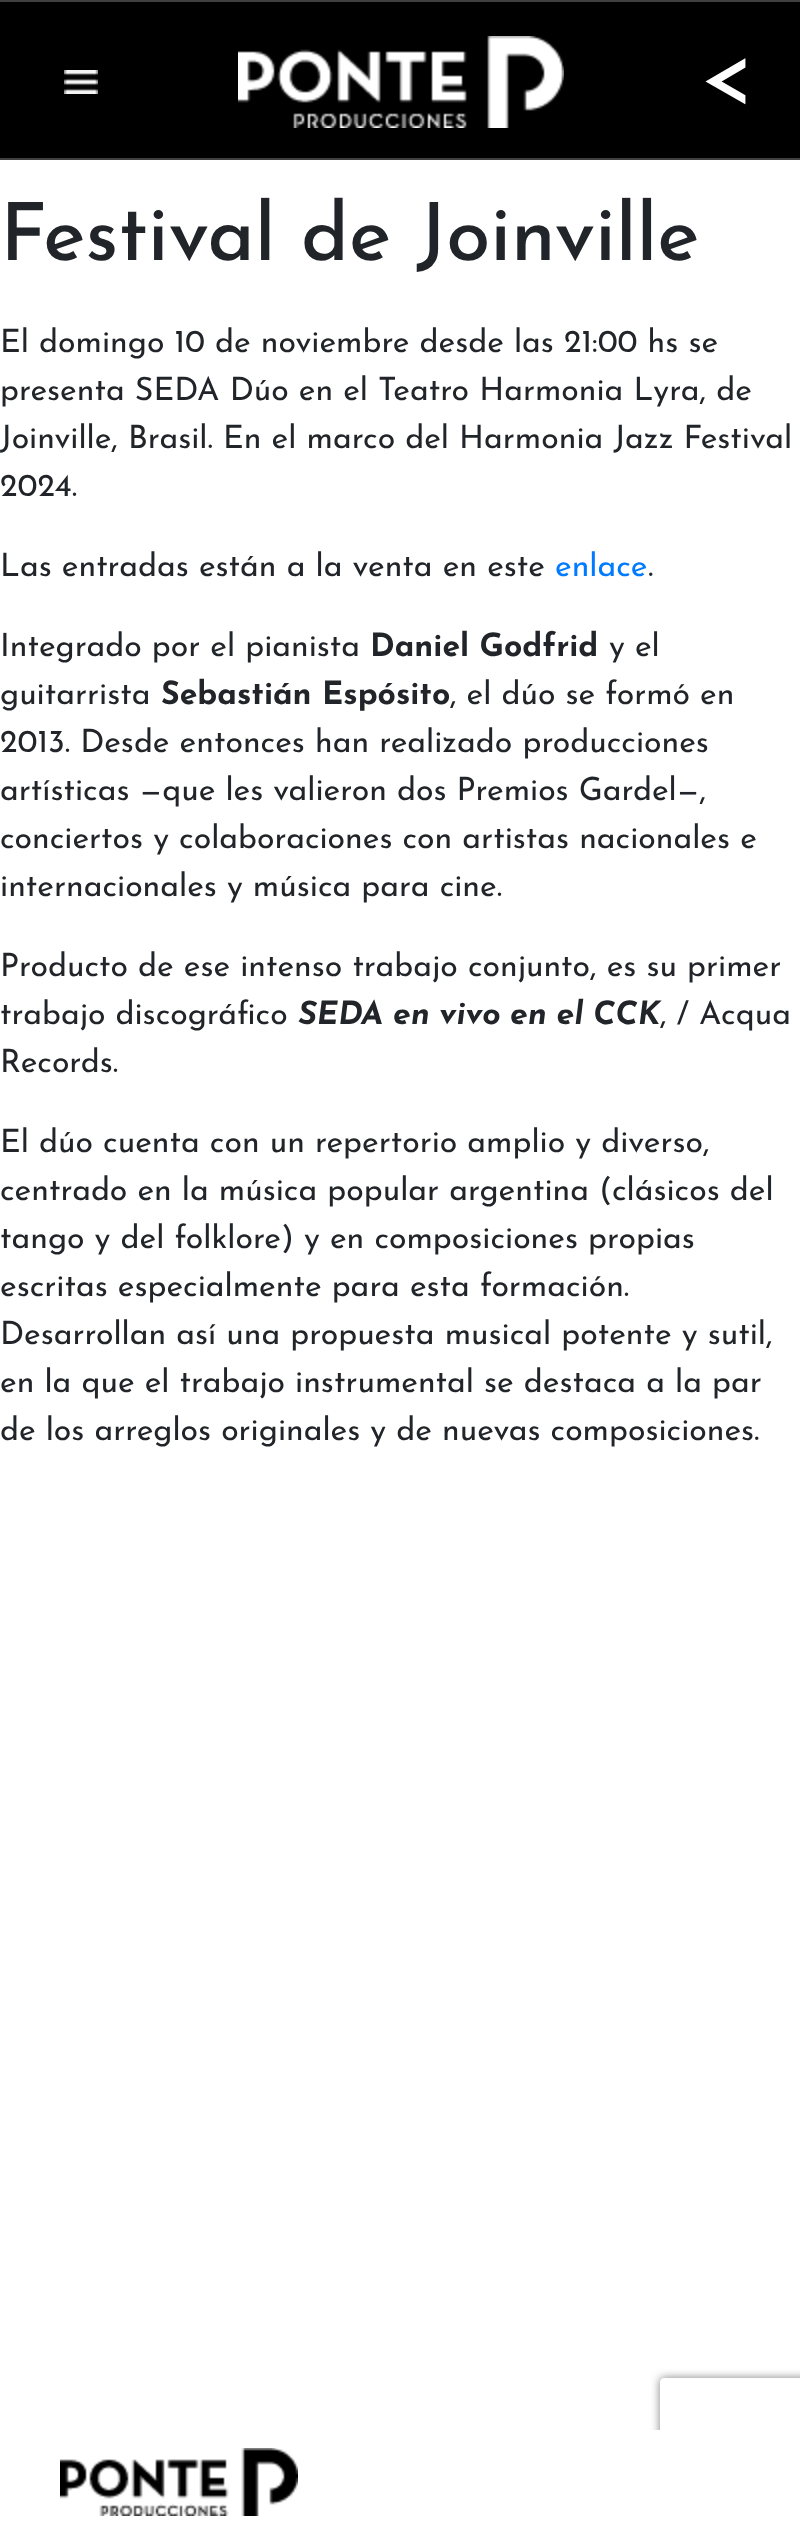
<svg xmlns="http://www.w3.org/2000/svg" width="800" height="2525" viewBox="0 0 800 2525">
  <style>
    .t1 { font: 90px Josefin Sans; fill: #fff; }
    .t2 { font: 500 80px Josefin Sans; fill: #212529; }
    .t3 { font: 32px Josefin Sans; fill: #212529; }
    .t4 { font: 32px Josefin Sans; fill: #007bff; }
    .t5 { font: bold 32px Josefin Sans; fill: #212529; }
    .t6 { font: italic bold 32px Josefin Sans; fill: #212529; }
  </style>
  <defs>
    <clipPath id="clip1"><path d="M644 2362H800V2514H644ZM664 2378H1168C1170 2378 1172 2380 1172 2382V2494C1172 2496 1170 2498 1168 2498H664C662 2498 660 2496 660 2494V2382C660 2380 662 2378 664 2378Z" clip-rule="evenodd"/></clipPath>
  </defs>
  <rect width="100%" height="100%" fill="#fff"/>
  <rect x="0" y="2" width="800" height="156" fill="#000"/>
  <rect x="0" y="0" width="800" height="2" fill="#404040"/>
  <rect x="0" y="158" width="800" height="2" fill="#404040"/>
  <image x="64" y="70" width="34" height="24" href="images/1.png"/>
  <image x="238" y="36" width="326" height="92" href="images/2.png"/>
  <text x="700" y="103" class="t1">&lt;</text>
  <text x="0" y="260" class="t2">Festival de Joinville</text>
  <text x="0" y="352" class="t3">El domingo 10 de noviembre desde las 21:00 hs se</text>
  <text x="0" y="400" class="t3">presenta SEDA Dúo en el Teatro Harmonia Lyra, de</text>
  <text x="0" y="448" class="t3">Joinville, Brasil. En el marco del Harmonia Jazz Festival</text>
  <text x="0" y="496" class="t3">2024.</text>
  <text x="0" y="576" class="t3">Las entradas están a la venta en este</text>
  <text x="555" y="576" class="t4">enlace</text>
  <text x="648" y="576" class="t3">.</text>
  <text x="0" y="656" class="t3">Integrado por el pianista</text>
  <text x="370" y="656" class="t5">Daniel Godfrid</text>
  <text x="609" y="656" class="t3">y el</text>
  <text x="0" y="704" class="t3">guitarrista</text>
  <text x="161" y="704" class="t5">Sebastián Espósito</text>
  <text x="450" y="704" class="t3">, el dúo se formó en</text>
  <text x="0" y="752" class="t3">2013. Desde entonces han realizado producciones</text>
  <text x="0" y="800" class="t3">artísticas —que les valieron dos Premios Gardel—,</text>
  <text x="0" y="848" class="t3">conciertos y colaboraciones con artistas nacionales e</text>
  <text x="0" y="896" class="t3">internacionales y música para cine.</text>
  <text x="0" y="976" class="t3">Producto de ese intenso trabajo conjunto, es su primer</text>
  <text x="0" y="1024" class="t3">trabajo discográfico</text>
  <text x="298" y="1024" class="t6">SEDA en vivo en el CCK</text>
  <text x="660" y="1024" class="t3">, / Acqua</text>
  <text x="0" y="1072" class="t3">Records.</text>
  <text x="0" y="1152" class="t3">El dúo cuenta con un repertorio amplio y diverso,</text>
  <text x="0" y="1200" class="t3">centrado en la música popular argentina (clásicos del</text>
  <text x="0" y="1248" class="t3">tango y del folklore) y en composiciones propias</text>
  <text x="0" y="1296" class="t3">escritas especialmente para esta formación.</text>
  <text x="0" y="1344" class="t3">Desarrollan así una propuesta musical potente y sutil,</text>
  <text x="0" y="1392" class="t3">en la que el trabajo instrumental se destaca a la par</text>
  <text x="0" y="1440" class="t3">de los arreglos originales y de nuevas composiciones.</text>
  <g clip-path="url(#clip1)">
    <rect x="660" y="2378" width="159" height="120" rx="4" fill="#808080" filter="blur(5px)"/>
  </g>
  <rect x="650" y="2430" width="150" height="78" fill="#fff"/>
  <image x="60" y="2448" width="238" height="68" href="images/3.png"/>
</svg>
